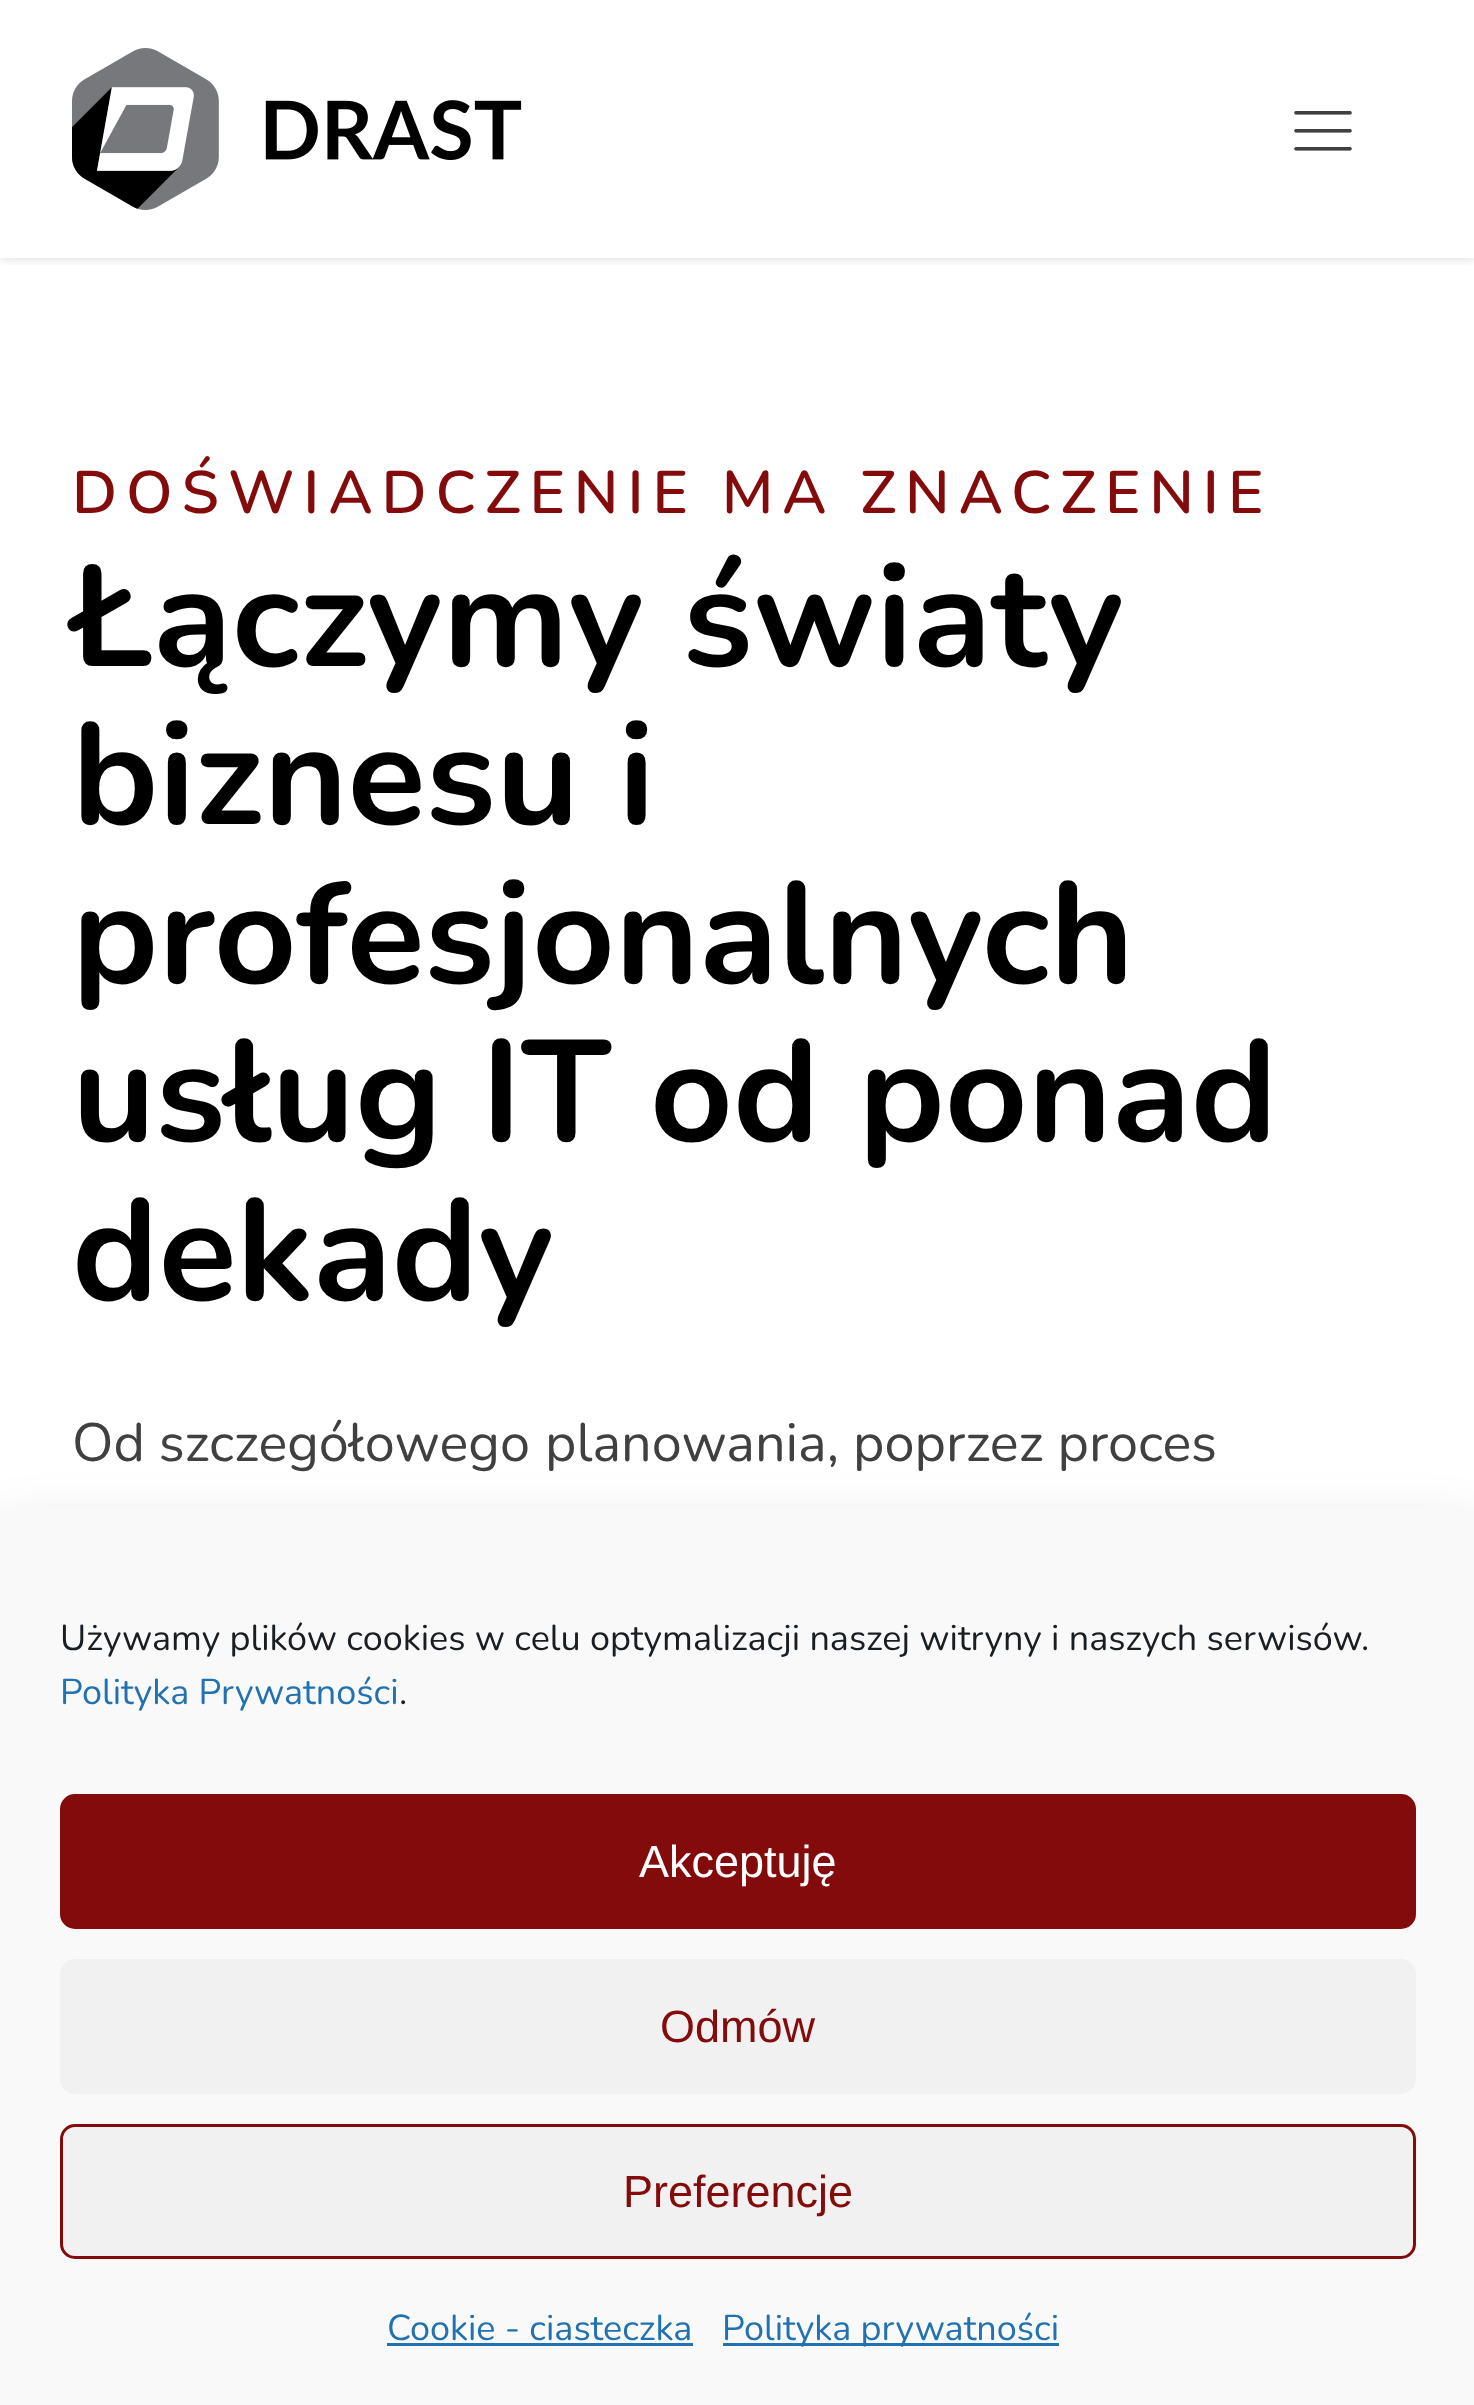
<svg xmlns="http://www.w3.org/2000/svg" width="1474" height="2405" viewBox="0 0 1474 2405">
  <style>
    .t1 { font: 600 60px Nunito; letter-spacing: 9px; fill: #840b0b; }
    .t2 { font: bold 144px Nunito; fill: #000; }
    .t3 { font: 54px Nunito; fill: #404040; }
    .t4 { font: 36px Nunito; fill: #191e23; }
    .t5 { font: 36px Nunito; fill: #2271b1; }
    .t6 { font: 45px Liberation Sans; fill: #fff; }
    .t7 { font: 45px Liberation Sans; fill: #840b0b; }
  </style>
  <defs>
    <clipPath id="clip1"><rect x="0" y="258" width="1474" height="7"/></clipPath>
  </defs>
  <rect width="100%" height="100%" fill="#fff"/>
  <g clip-path="url(#clip1)">
    <rect x="0" y="0" width="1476" height="258" fill="#00000026" filter="blur(6px)"/>
  </g>
  <image x="72" y="48" width="450" height="162" href="images/1.png"/>
  <image x="1294" y="111" width="58" height="40" href="images/2.png"/>
  <text x="72" y="513" class="t1">DOŚWIADCZENIE MA ZNACZENIE</text>
  <text x="72" y="666" class="t2">Łączymy światy</text>
  <text x="72" y="824" class="t2">biznesu i</text>
  <text x="72" y="983" class="t2">profesjonalnych</text>
  <text x="72" y="1141" class="t2">usług IT od ponad</text>
  <text x="72" y="1300" class="t2">dekady</text>
  <text x="72" y="1461" class="t3">Od szczegółowego</text>
  <text x="545" y="1461" class="t3">planowania, poprzez proces</text>
  <rect x="0" y="1536" width="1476" height="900" fill="#00000030" filter="blur(30px)"/>
  <rect x="0" y="1508" width="1474" height="897" fill="#f9f9f9"/>
  <text x="60" y="1650" class="t4">Używamy plików cookies w celu optymalizacji naszej witryny i naszych serwisów.</text>
  <text x="60" y="1704" class="t5">Polityka Prywatności</text>
  <text x="399" y="1704" class="t4">.</text>
  <rect x="61.5" y="1795.5" width="1353" height="132" rx="13.5" fill="#840b0b" stroke="#840b0b" stroke-width="3"/>
  <text x="639" y="1877" class="t6">Akceptuję</text>
  <rect x="60" y="1959" width="1356" height="135" rx="15" fill="#f1f1f1"/>
  <text x="660" y="2042" class="t7">Odmów</text>
  <rect x="61.5" y="2125.5" width="1353" height="132" rx="13.5" fill="#f1f1f1" stroke="#840b0b" stroke-width="3"/>
  <text x="623" y="2207" class="t7">Preferencje</text>
  <text x="387" y="2340" class="t5">Cookie - ciasteczka</text>
  <rect x="387" y="2343" width="306" height="3" fill="#2271b1"/>
  <rect x="723" y="2343" width="336" height="3" fill="#2271b1"/>
  <text x="722" y="2340" class="t5">Polityka prywatności</text>
</svg>
